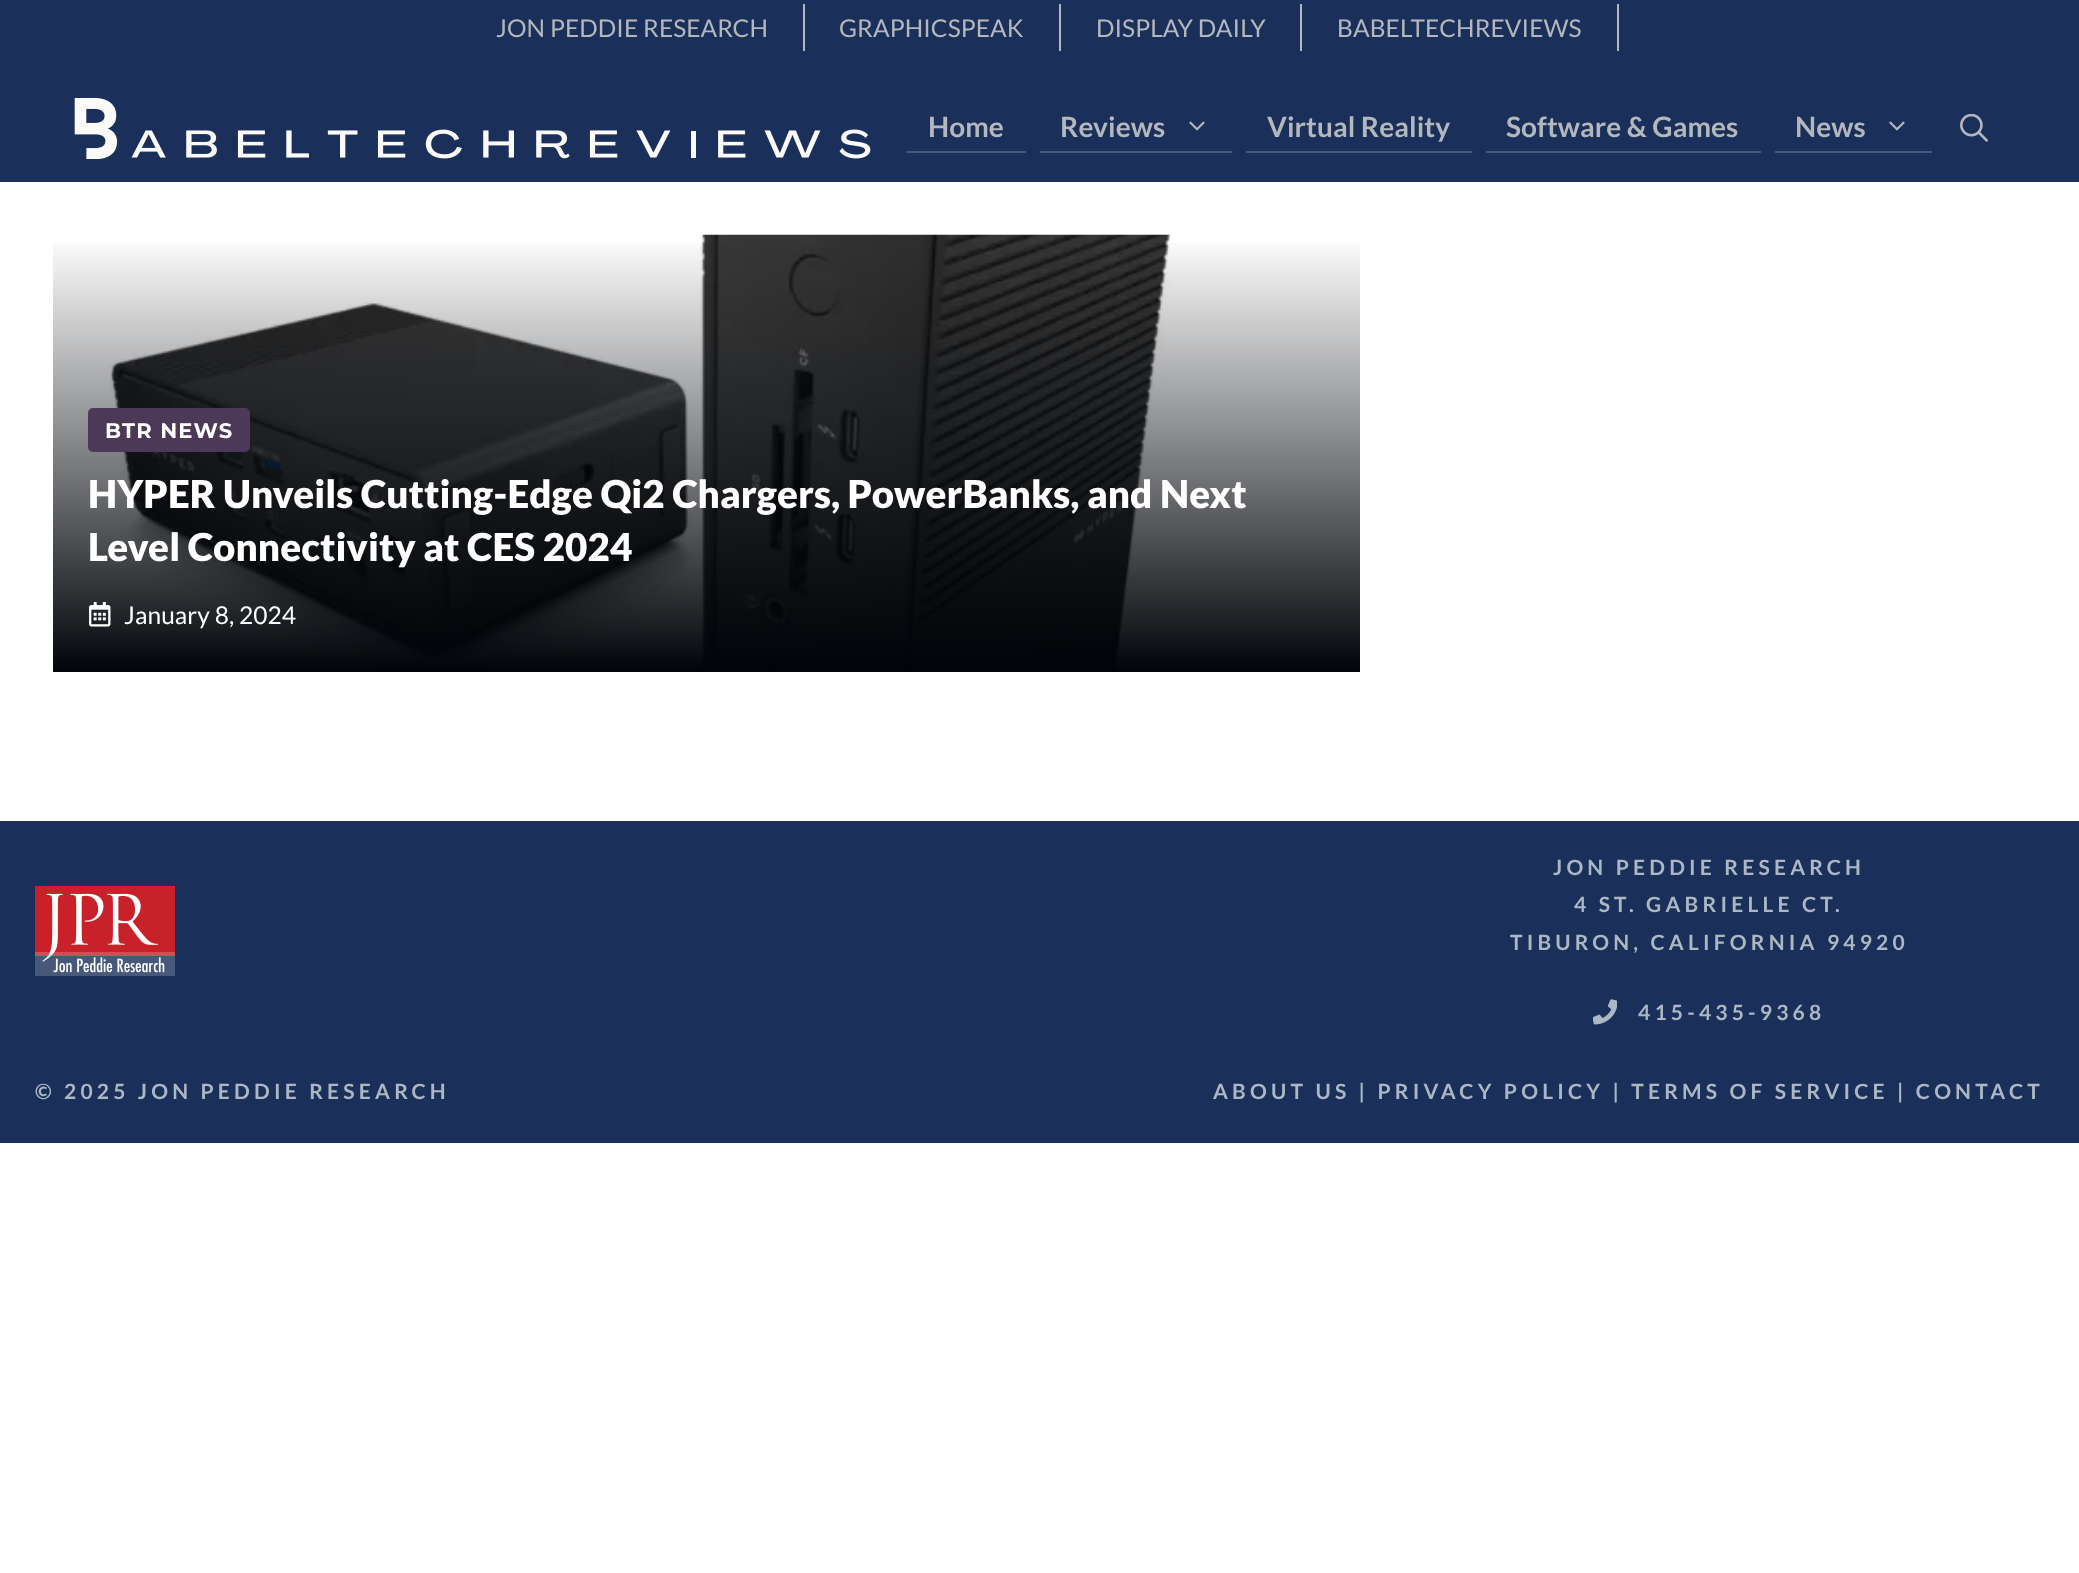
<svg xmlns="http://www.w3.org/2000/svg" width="2079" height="1573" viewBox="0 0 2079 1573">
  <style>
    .t1 { font: 24.5px Lato; letter-spacing: 0.07px; fill: #b4b8bc; }
    .t2 { font: bold 28px Lato; letter-spacing: 0.07px; fill: #b4b8bc; }
    .t3 { font: bold 21px Montserrat; letter-spacing: 1.25px; fill: #fff; }
    .t4 { font: 900 38.5px Lato; letter-spacing: 0.07px; fill: #fff; }
    .t5 { font: 24.5px Lato; letter-spacing: 0.07px; fill: #fff; }
    .t6 { font: bold 21px Lato; letter-spacing: 4.2px; fill: #abb8c3; }
  </style>
  <defs>
    <linearGradient id="g1" gradientUnits="userSpaceOnUse" x1="706" y1="234" x2="706" y2="672"><stop offset="0" stop-color="#000408" stop-opacity="0"/><stop offset="1" stop-color="#000408"/></linearGradient>
  </defs>
  <rect width="100%" height="100%" fill="#fff"/>
  <rect x="0" y="0" width="2079" height="182" fill="#1a2f59"/>
  <rect x="803" y="4" width="2" height="47" fill="#b4b8bc"/>
  <text x="496" y="37" class="t1">JON PEDDIE RESEARCH</text>
  <rect x="1059" y="4" width="2" height="47" fill="#b4b8bc"/>
  <text x="839" y="37" class="t1">GRAPHICSPEAK</text>
  <rect x="1300" y="4" width="2" height="47" fill="#b4b8bc"/>
  <text x="1096" y="37" class="t1">DISPLAY DAILY</text>
  <rect x="1617" y="4" width="2" height="47" fill="#b4b8bc"/>
  <text x="1337" y="37" class="t1">BABELTECHREVIEWS</text>
  <image x="74" y="98" width="797" height="61" href="images/1.png"/>
  <rect x="907" y="151" width="119" height="2" fill="#48597a"/>
  <text x="928" y="137" class="t2">Home</text>
  <rect x="1040" y="151" width="192" height="2" fill="#48597a"/>
  <text x="1060" y="137" class="t2">Reviews</text>
  <image x="1189" y="121" width="16" height="10" href="images/2.png"/>
  <rect x="1246" y="151" width="226" height="2" fill="#48597a"/>
  <text x="1267" y="137" class="t2">Virtual Reality</text>
  <rect x="1486" y="151" width="275" height="2" fill="#48597a"/>
  <text x="1506" y="137" class="t2">Software &amp; Games</text>
  <rect x="1775" y="151" width="157" height="2" fill="#48597a"/>
  <text x="1795" y="137" class="t2">News</text>
  <image x="1889" y="121" width="16" height="10" href="images/2.png"/>
  <image x="1960" y="114" width="28" height="28" href="images/3.png"/>
  <image x="109" y="234" width="1062" height="435" href="images/4.png"/>
  <rect x="53" y="243" width="1307" height="429" fill="url(#g1)"/>
  <rect x="88" y="408" width="162" height="44" rx="5" fill="#4c3957"/>
  <text x="105" y="438" class="t3">BTR NEWS</text>
  <text x="88" y="508" class="t4">HYPER Unveils Cutting-Edge Qi2 Chargers, PowerBanks, and Next</text>
  <text x="88" y="561" class="t4">Level Connectivity at CES 2024</text>
  <image x="89" y="602" width="22" height="25" href="images/5.png"/>
  <text x="124" y="624" class="t5">January 8, 2024</text>
  <rect x="0" y="821" width="2079" height="322" fill="#1a2f59"/>
  <image x="35" y="886" width="140" height="90" href="images/6.png"/>
  <text x="1553" y="875" class="t6">JON PEDDIE RESEARCH</text>
  <text x="1574" y="912" class="t6">4 ST. GABRIELLE CT.</text>
  <text x="1510" y="950" class="t6">TIBURON, CALIFORNIA 94920</text>
  <image x="1593" y="999" width="24" height="26" href="images/7.png"/>
  <text x="1638" y="1020" class="t6">415-435-9368</text>
  <text x="35" y="1099" class="t6">© 2025 JON PEDDIE RESEARCH</text>
  <text x="1213" y="1099" class="t6">ABOUT US | PRIVACY POLICY | TERMS OF SERVICE | CONTACT</text>
</svg>
